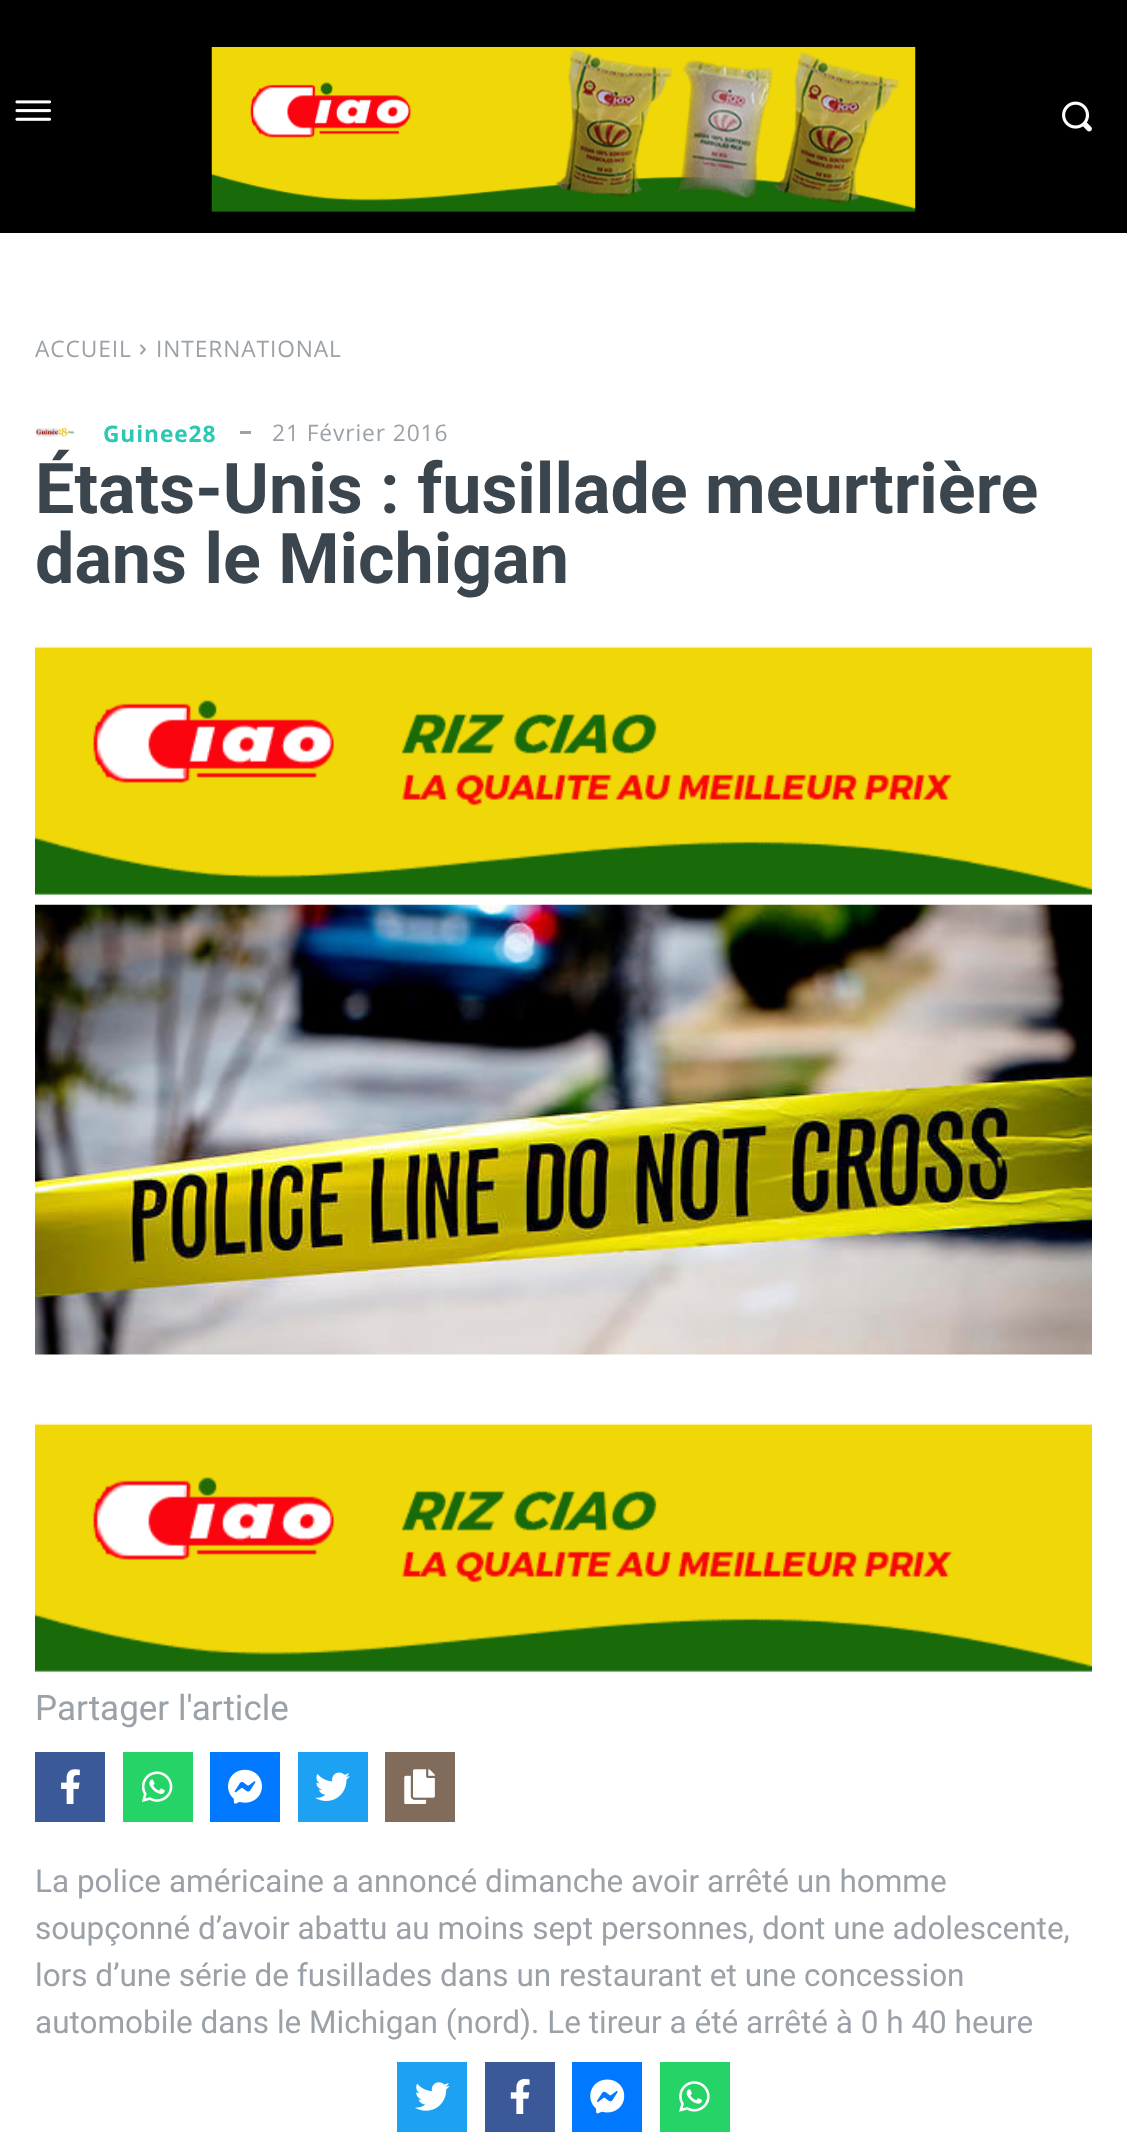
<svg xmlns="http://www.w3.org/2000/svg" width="1127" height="2148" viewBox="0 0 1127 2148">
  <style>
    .t1 { font: 22.75px Open Sans; letter-spacing: 0.9px; fill: #9ba1a8; }
    .t2 { font: bold 22.75px Open Sans; letter-spacing: 0.9px; fill: #2cc8b3; }
    .t3 { font: bold 70px Roboto; fill: #3a454e; }
    .t4 { font: 35px Roboto; fill: #9ba1a8; }
    .t5 { font: 31.5px Roboto; fill: #9ba1a8; }
  </style>
  <rect width="100%" height="100%" fill="#fff"/>
  <rect x="0" y="0" width="1127" height="233" fill="#000"/>
  <image x="15" y="100" width="36" height="21" href="images/1.png"/>
  <image x="211" y="47" width="705" height="165" href="images/2.png"/>
  <image x="1062" y="101" width="30" height="31" href="images/3.png"/>
  <text x="35" y="357" class="t1">ACCUEIL</text>
  <image x="140" y="344" width="6" height="11" href="images/4.png"/>
  <text x="156" y="357" class="t1">INTERNATIONAL</text>
  <image x="35" y="427" width="40" height="10" href="images/5.png"/>
  <text x="103" y="442" class="t2">Guinee28</text>
  <rect x="240" y="431" width="11" height="3" fill="#9ba1a8"/>
  <text x="272" y="441" class="t1">21 Février 2016</text>
  <text x="35" y="513" class="t3">États-Unis : fusillade meurtrière</text>
  <text x="35" y="583" class="t3">dans le Michigan</text>
  <image x="35" y="646" width="1057" height="249" href="images/6.png"/>
  <image x="35" y="904" width="1057" height="451" href="images/7.png"/>
  <image x="35" y="1423" width="1057" height="249" href="images/6.png"/>
  <text x="35" y="1720" class="t4">Partager l'article</text>
  <rect x="35" y="1752" width="70" height="70" fill="#3b5998"/>
  <image x="61" y="1769" width="19" height="35" href="images/8.png"/>
  <rect x="123" y="1752" width="70" height="70" fill="#25d366"/>
  <image x="142" y="1771" width="31" height="31" href="images/9.png"/>
  <rect x="210" y="1752" width="70" height="70" fill="#0078ff"/>
  <image x="228" y="1769" width="34" height="35" href="images/10.png"/>
  <rect x="298" y="1752" width="70" height="70" fill="#1da1f2"/>
  <image x="315" y="1772" width="35" height="29" href="images/11.png"/>
  <rect x="385" y="1752" width="70" height="70" fill="#816b5b"/>
  <image x="404" y="1769" width="31" height="35" href="images/12.png"/>
  <text x="35" y="1892" class="t5">La police américaine a annoncé dimanche avoir arrêté un homme</text>
  <text x="35" y="1939" class="t5">soupçonné d’avoir abattu au moins sept personnes, dont une adolescente,</text>
  <text x="35" y="1986" class="t5">lors d’une série de fusillades dans un restaurant et une concession</text>
  <text x="35" y="2033" class="t5">automobile dans le Michigan (nord). Le tireur a été arrêté à 0 h 40 heure</text>
  <rect x="397" y="2062" width="70" height="70" fill="#1da1f2"/>
  <image x="415" y="2082" width="35" height="29" href="images/13.png"/>
  <rect x="485" y="2062" width="70" height="70" fill="#3b5998"/>
  <image x="510" y="2079" width="20" height="35" href="images/14.png"/>
  <rect x="572" y="2062" width="70" height="70" fill="#0078ff"/>
  <image x="590" y="2079" width="35" height="35" href="images/15.png"/>
  <rect x="660" y="2062" width="70" height="70" fill="#25d366"/>
  <image x="679" y="2081" width="31" height="31" href="images/16.png"/>
</svg>
